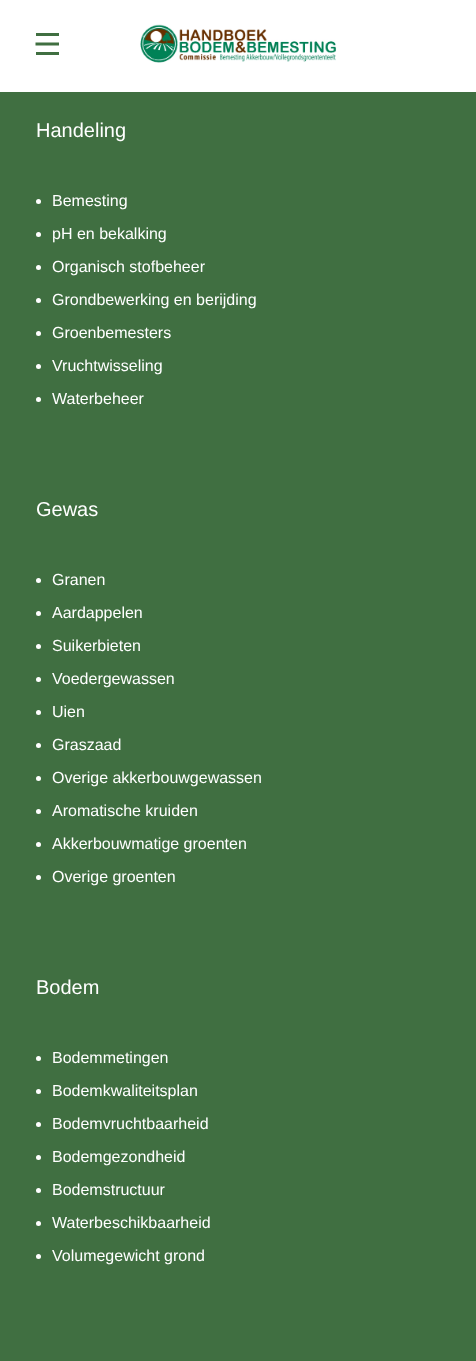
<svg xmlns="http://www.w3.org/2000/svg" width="476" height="1361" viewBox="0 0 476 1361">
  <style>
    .t1 { font: 20px Liberation Sans; fill: #fff; }
    .t2 { font: 16px Liberation Sans; fill: #fff; }
  </style>
  <rect width="100%" height="100%" fill="#406f41"/>
  <rect x="0" y="0" width="476" height="92" fill="#fff"/>
  <rect x="36" y="33" width="23" height="3" fill="#406f41"/>
  <path d="M59 44H35.5M59 44H35.5" fill="none" stroke="#406f41" stroke-width="3"/>
  <rect x="36" y="52" width="23" height="3" fill="#406f41"/>
  <image x="140" y="24" width="197" height="39" href="images/1.png"/>
  <text x="36" y="137" class="t1">Handeling</text>
  <circle cx="38.5" cy="201.5" r="2.5" fill="#fff"/>
  <text x="52" y="206" class="t2">Bemesting</text>
  <circle cx="38.5" cy="234.5" r="2.5" fill="#fff"/>
  <text x="52" y="239" class="t2">pH en bekalking</text>
  <circle cx="38.5" cy="267.5" r="2.5" fill="#fff"/>
  <text x="52" y="272" class="t2">Organisch stofbeheer</text>
  <circle cx="38.5" cy="300.5" r="2.5" fill="#fff"/>
  <text x="52" y="305" class="t2">Grondbewerking en berijding</text>
  <circle cx="38.5" cy="333.5" r="2.5" fill="#fff"/>
  <text x="52" y="338" class="t2">Groenbemesters</text>
  <circle cx="38.5" cy="366.5" r="2.5" fill="#fff"/>
  <text x="52" y="371" class="t2">Vruchtwisseling</text>
  <circle cx="38.5" cy="399.5" r="2.5" fill="#fff"/>
  <text x="52" y="404" class="t2">Waterbeheer</text>
  <text x="36" y="516" class="t1">Gewas</text>
  <circle cx="38.5" cy="580.5" r="2.5" fill="#fff"/>
  <text x="52" y="585" class="t2">Granen</text>
  <circle cx="38.5" cy="613.5" r="2.5" fill="#fff"/>
  <text x="52" y="618" class="t2">Aardappelen</text>
  <circle cx="38.5" cy="646.5" r="2.5" fill="#fff"/>
  <text x="52" y="651" class="t2">Suikerbieten</text>
  <circle cx="38.5" cy="679.5" r="2.5" fill="#fff"/>
  <text x="52" y="684" class="t2">Voedergewassen</text>
  <circle cx="38.5" cy="712.5" r="2.5" fill="#fff"/>
  <text x="52" y="717" class="t2">Uien</text>
  <circle cx="38.5" cy="745.5" r="2.5" fill="#fff"/>
  <text x="52" y="750" class="t2">Graszaad</text>
  <circle cx="38.5" cy="778.5" r="2.5" fill="#fff"/>
  <text x="52" y="783" class="t2">Overige akkerbouwgewassen</text>
  <circle cx="38.5" cy="811.5" r="2.5" fill="#fff"/>
  <text x="52" y="816" class="t2">Aromatische kruiden</text>
  <circle cx="38.5" cy="844.5" r="2.5" fill="#fff"/>
  <text x="52" y="849" class="t2">Akkerbouwmatige groenten</text>
  <circle cx="38.5" cy="877.5" r="2.5" fill="#fff"/>
  <text x="52" y="882" class="t2">Overige groenten</text>
  <text x="36" y="994" class="t1">Bodem</text>
  <circle cx="38.5" cy="1058.5" r="2.5" fill="#fff"/>
  <text x="52" y="1063" class="t2">Bodemmetingen</text>
  <circle cx="38.5" cy="1091.5" r="2.5" fill="#fff"/>
  <text x="52" y="1096" class="t2">Bodemkwaliteitsplan</text>
  <circle cx="38.5" cy="1124.5" r="2.5" fill="#fff"/>
  <text x="52" y="1129" class="t2">Bodemvruchtbaarheid</text>
  <circle cx="38.5" cy="1157.5" r="2.5" fill="#fff"/>
  <text x="52" y="1162" class="t2">Bodemgezondheid</text>
  <circle cx="38.5" cy="1190.5" r="2.5" fill="#fff"/>
  <text x="52" y="1195" class="t2">Bodemstructuur</text>
  <circle cx="38.5" cy="1223.5" r="2.5" fill="#fff"/>
  <text x="52" y="1228" class="t2">Waterbeschikbaarheid</text>
  <circle cx="38.5" cy="1256.5" r="2.5" fill="#fff"/>
  <text x="52" y="1261" class="t2">Volumegewicht grond</text>
</svg>
